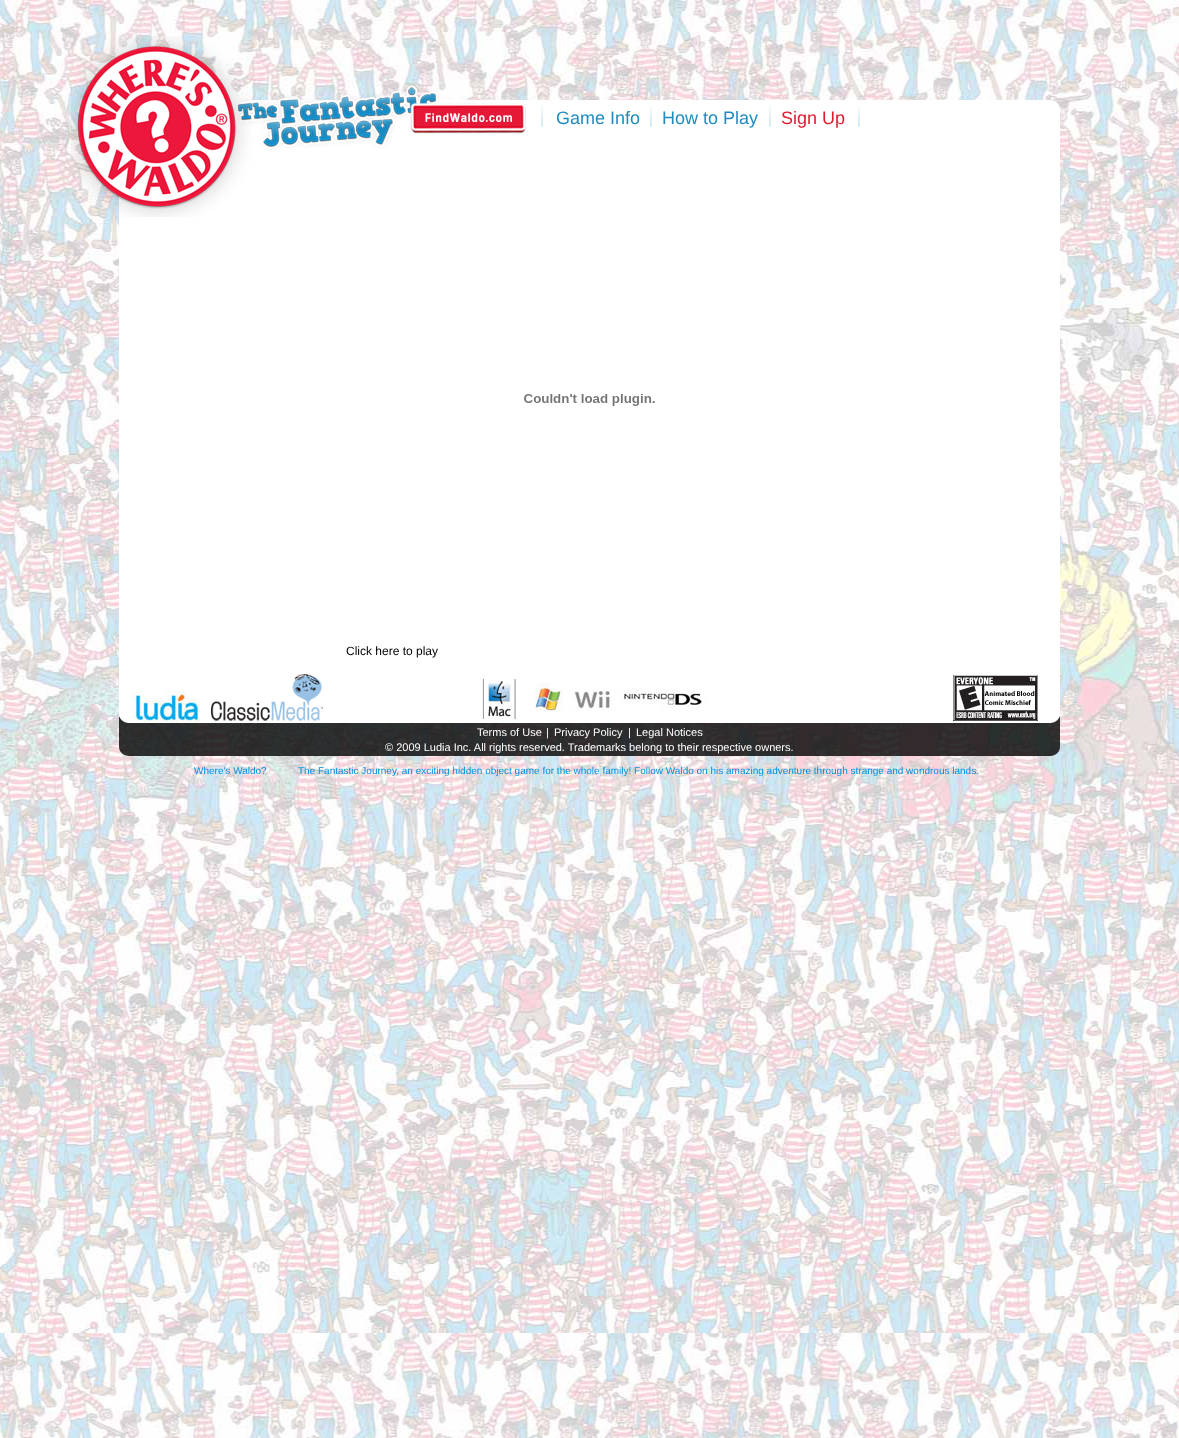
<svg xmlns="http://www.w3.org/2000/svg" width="1179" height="1438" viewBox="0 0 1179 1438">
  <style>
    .t1 { font: 18px Liberation Sans; fill: #1f8cc1; }
    .t2 { font: 18px Liberation Sans; fill: #df1d2f; }
    .t3 { font: 12px Liberation Sans; fill: #000; }
    .t4 { font: 11px Liberation Sans; fill: #fff; }
    .t5 { font: 10px Liberation Sans; fill: #0090de; }
  </style>
  <rect width="100%" height="100%" fill="#fff"/>
  <image x="0" y="0" width="1179" height="1438" href="images/1.png"/>
  <image x="119" y="100" width="941" height="656" href="images/2.png"/>
  <image x="71" y="36" width="368" height="181" href="images/3.png"/>
  <image x="410" y="102" width="116" height="32" href="images/4.png"/>
  <image x="541" y="104" width="2" height="23" href="images/5.png"/>
  <text x="556" y="124" class="t1">Game Info</text>
  <image x="650" y="104" width="2" height="23" href="images/5.png"/>
  <text x="662" y="124" class="t1">How to Play</text>
  <image x="769" y="104" width="2" height="23" href="images/5.png"/>
  <text x="781" y="124" class="t2">Sign Up</text>
  <image x="858" y="104" width="2" height="23" href="images/5.png"/>
  <image x="524" y="394" width="131" height="12" href="images/6.png"/>
  <text x="346" y="655" class="t3">Click here to play</text>
  <image x="130" y="674" width="908" height="48" href="images/7.png"/>
  <text x="477" y="736" class="t4">Terms of Use</text>
  <text x="546" y="736" class="t4">|</text>
  <text x="554" y="736" class="t4">Privacy Policy</text>
  <text x="628" y="736" class="t4">|</text>
  <text x="636" y="736" class="t4">Legal Notices</text>
  <text x="385" y="751" class="t4">© 2009 Ludia Inc. All rights reserved. Trademarks belong to their respective owners.</text>
  <text x="194" y="774" class="t5">Where's Waldo?</text>
  <text x="298" y="774" class="t5">The Fantastic Journey, an exciting hidden object game for the whole family! Follow Waldo on his amazing adventure through strange and wondrous lands.</text>
</svg>
